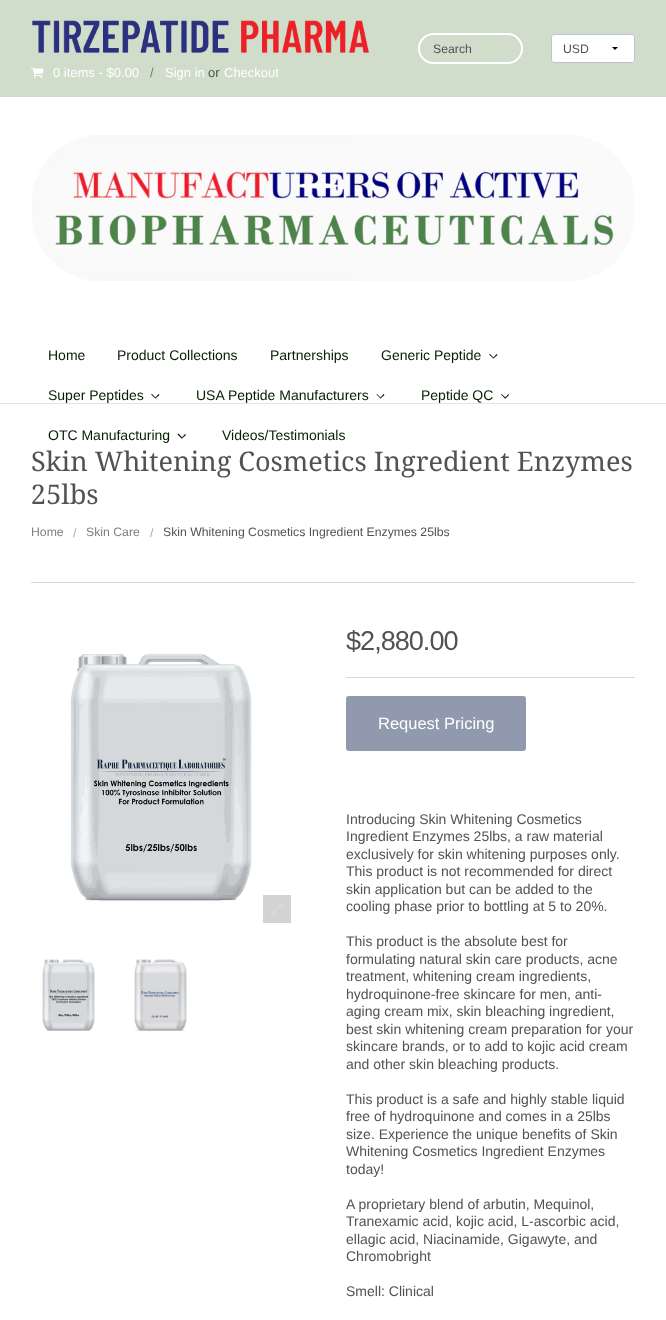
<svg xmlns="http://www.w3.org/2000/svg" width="666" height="1320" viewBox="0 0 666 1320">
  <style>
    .t1 { font: 12.25px Liberation Sans; fill: #525252; }
    .t2 { font: 13px Liberation Sans; fill: #fff; }
    .t3 { font: 13px Liberation Sans; fill: #787c76; }
    .t4 { font: 13px Liberation Sans; fill: #525252; }
    .t5 { font: 14px Liberation Sans; fill: #071d03; }
    .t6 { font: 27.1px Droid Serif; fill: #525252; }
    .t7 { font: 12.25px Liberation Sans; fill: #7f7f7f; }
    .t8 { font: 12.25px Liberation Sans; fill: #aaa; }
    .t9 { font: 27.1px Liberation Sans; letter-spacing: -1px; fill: #525252; }
    .t10 { font: 16.5px Liberation Sans; fill: #fff; }
    .t11 { font: 14px Liberation Sans; fill: #525252; }
  </style>
  <rect width="100%" height="100%" fill="#d0ddcb"/>
  <rect x="419" y="34" width="103" height="29" rx="14.5" fill="none" stroke="#fff" stroke-width="2"/>
  <text x="433" y="53" class="t1">Search</text>
  <rect x="551" y="34" width="84" height="29" rx="3" fill="#fff"/>
  <path d="M618 47L615 50L612 47Z" fill="#000"/>
  <rect x="551.5" y="34.5" width="83" height="28" rx="2.5" fill="none" stroke="#bcc3ca"/>
  <text x="563" y="53" class="t1">USD</text>
  <image x="32" y="20" width="337" height="33" href="images/1.png"/>
  <image x="31" y="67" width="13" height="11" href="images/2.png"/>
  <text x="53" y="77" class="t2">0 items - $0.00</text>
  <text x="150" y="77" class="t3">/</text>
  <text x="165" y="77" class="t2">Sign in</text>
  <text x="208" y="77" class="t4">or</text>
  <text x="224" y="77" class="t2">Checkout</text>
  <rect x="0" y="97" width="666" height="306" fill="#fff"/>
  <rect x="0" y="403" width="666" height="1" fill="#e4e5e6"/>
  <image x="32" y="135" width="602" height="146" href="images/3.png"/>
  <text x="48" y="360" class="t5">Home</text>
  <text x="117" y="360" class="t5">Product Collections</text>
  <text x="270" y="360" class="t5">Partnerships</text>
  <text x="381" y="360" class="t5">Generic Peptide</text>
  <path d="M496.5 354L497.5 355L493.5 358.5L493 358Z" fill="#071d03"/>
  <path d="M490 354L494 358L493.5 358.5L489 354.5Z" fill="#071d03"/>
  <text x="48" y="400" class="t5">Super Peptides</text>
  <path d="M158.5 394L159.5 395L155.5 398.5L155 398Z" fill="#071d03"/>
  <path d="M152 394L156 398L155.5 398.5L151 394.5Z" fill="#071d03"/>
  <text x="196" y="400" class="t5">USA Peptide Manufacturers</text>
  <path d="M383.5 394L384.5 395L380.5 398.5L380 398Z" fill="#071d03"/>
  <path d="M377 394L381 398L380.5 398.5L376.5 394.5Z" fill="#071d03"/>
  <text x="421" y="400" class="t5">Peptide QC</text>
  <path d="M508.5 394L509 395L505.5 398.5L504.5 398Z" fill="#071d03"/>
  <path d="M501.5 394L506 398L505 398.5L501 394.5Z" fill="#071d03"/>
  <rect x="0" y="404" width="666" height="916" fill="#fff"/>
  <text x="48" y="440" class="t5">OTC Manufacturing</text>
  <path d="M185 434L186 435L182 438.5L181.5 438Z" fill="#071d03"/>
  <path d="M178.5 433.5L182.5 438L181.5 438.5L177.5 434.5Z" fill="#071d03"/>
  <text x="222" y="440" class="t5">Videos/Testimonials</text>
  <rect x="31" y="582" width="604" height="1" fill="#d0ddcb"/>
  <text x="31" y="471" class="t6">Skin Whitening Cosmetics Ingredient Enzymes</text>
  <text x="31" y="504" class="t6">25lbs</text>
  <text x="31" y="536" class="t7">Home</text>
  <text x="73" y="537" class="t8">/</text>
  <text x="86" y="536" class="t7">Skin Care</text>
  <text x="150" y="537" class="t8">/</text>
  <text x="163" y="536" class="t1">Skin Whitening Cosmetics Ingredient Enzymes 25lbs</text>
  <image x="155" y="766" width="12" height="16" href="images/4.png"/>
  <image x="70" y="653" width="182" height="248" href="images/5.png"/>
  <rect x="263" y="895" width="28" height="28" fill="#d3d3d3"/>
  <image x="271" y="903" width="12" height="12" href="images/6.png"/>
  <image x="42" y="959" width="53" height="72" href="images/7.png"/>
  <image x="134" y="959" width="53" height="72" href="images/8.png"/>
  <rect x="346" y="677" width="289" height="1" fill="#d0ddcb"/>
  <text x="346" y="650" class="t9">$2,880.00</text>
  <rect x="346" y="696" width="180" height="55" rx="3" fill="#9099ae"/>
  <text x="378" y="729" class="t10">Request Pricing</text>
  <text x="346" y="824" class="t11">Introducing Skin Whitening Cosmetics</text>
  <text x="346" y="841" class="t11">Ingredient Enzymes 25lbs, a raw material</text>
  <text x="346" y="859" class="t11">exclusively for skin whitening purposes only.</text>
  <text x="346" y="876" class="t11">This product is not recommended for direct</text>
  <text x="346" y="894" class="t11">skin application but can be added to the</text>
  <text x="346" y="911" class="t11">cooling phase prior to bottling at 5 to 20%.</text>
  <text x="346" y="946" class="t11">This product is the absolute best for</text>
  <text x="346" y="964" class="t11">formulating natural skin care products, acne</text>
  <text x="346" y="981" class="t11">treatment, whitening cream ingredients,</text>
  <text x="346" y="999" class="t11">hydroquinone-free skincare for men, anti-</text>
  <text x="346" y="1016" class="t11">aging cream mix, skin bleaching ingredient,</text>
  <text x="346" y="1034" class="t11">best skin whitening cream preparation for your</text>
  <text x="346" y="1051" class="t11">skincare brands, or to add to kojic acid cream</text>
  <text x="346" y="1069" class="t11">and other skin bleaching products.</text>
  <text x="346" y="1104" class="t11">This product is a safe and highly stable liquid</text>
  <text x="346" y="1121" class="t11">free of hydroquinone and comes in a 25lbs</text>
  <text x="346" y="1139" class="t11">size. Experience the unique benefits of Skin</text>
  <text x="346" y="1156" class="t11">Whitening Cosmetics Ingredient Enzymes</text>
  <text x="346" y="1174" class="t11">today!</text>
  <text x="346" y="1209" class="t11">A proprietary blend of arbutin, Mequinol,</text>
  <text x="346" y="1226" class="t11">Tranexamic acid, kojic acid, L-ascorbic acid,</text>
  <text x="346" y="1244" class="t11">ellagic acid, Niacinamide, Gigawyte, and</text>
  <text x="346" y="1261" class="t11">Chromobright</text>
  <text x="346" y="1296" class="t11">Smell: Clinical</text>
</svg>
